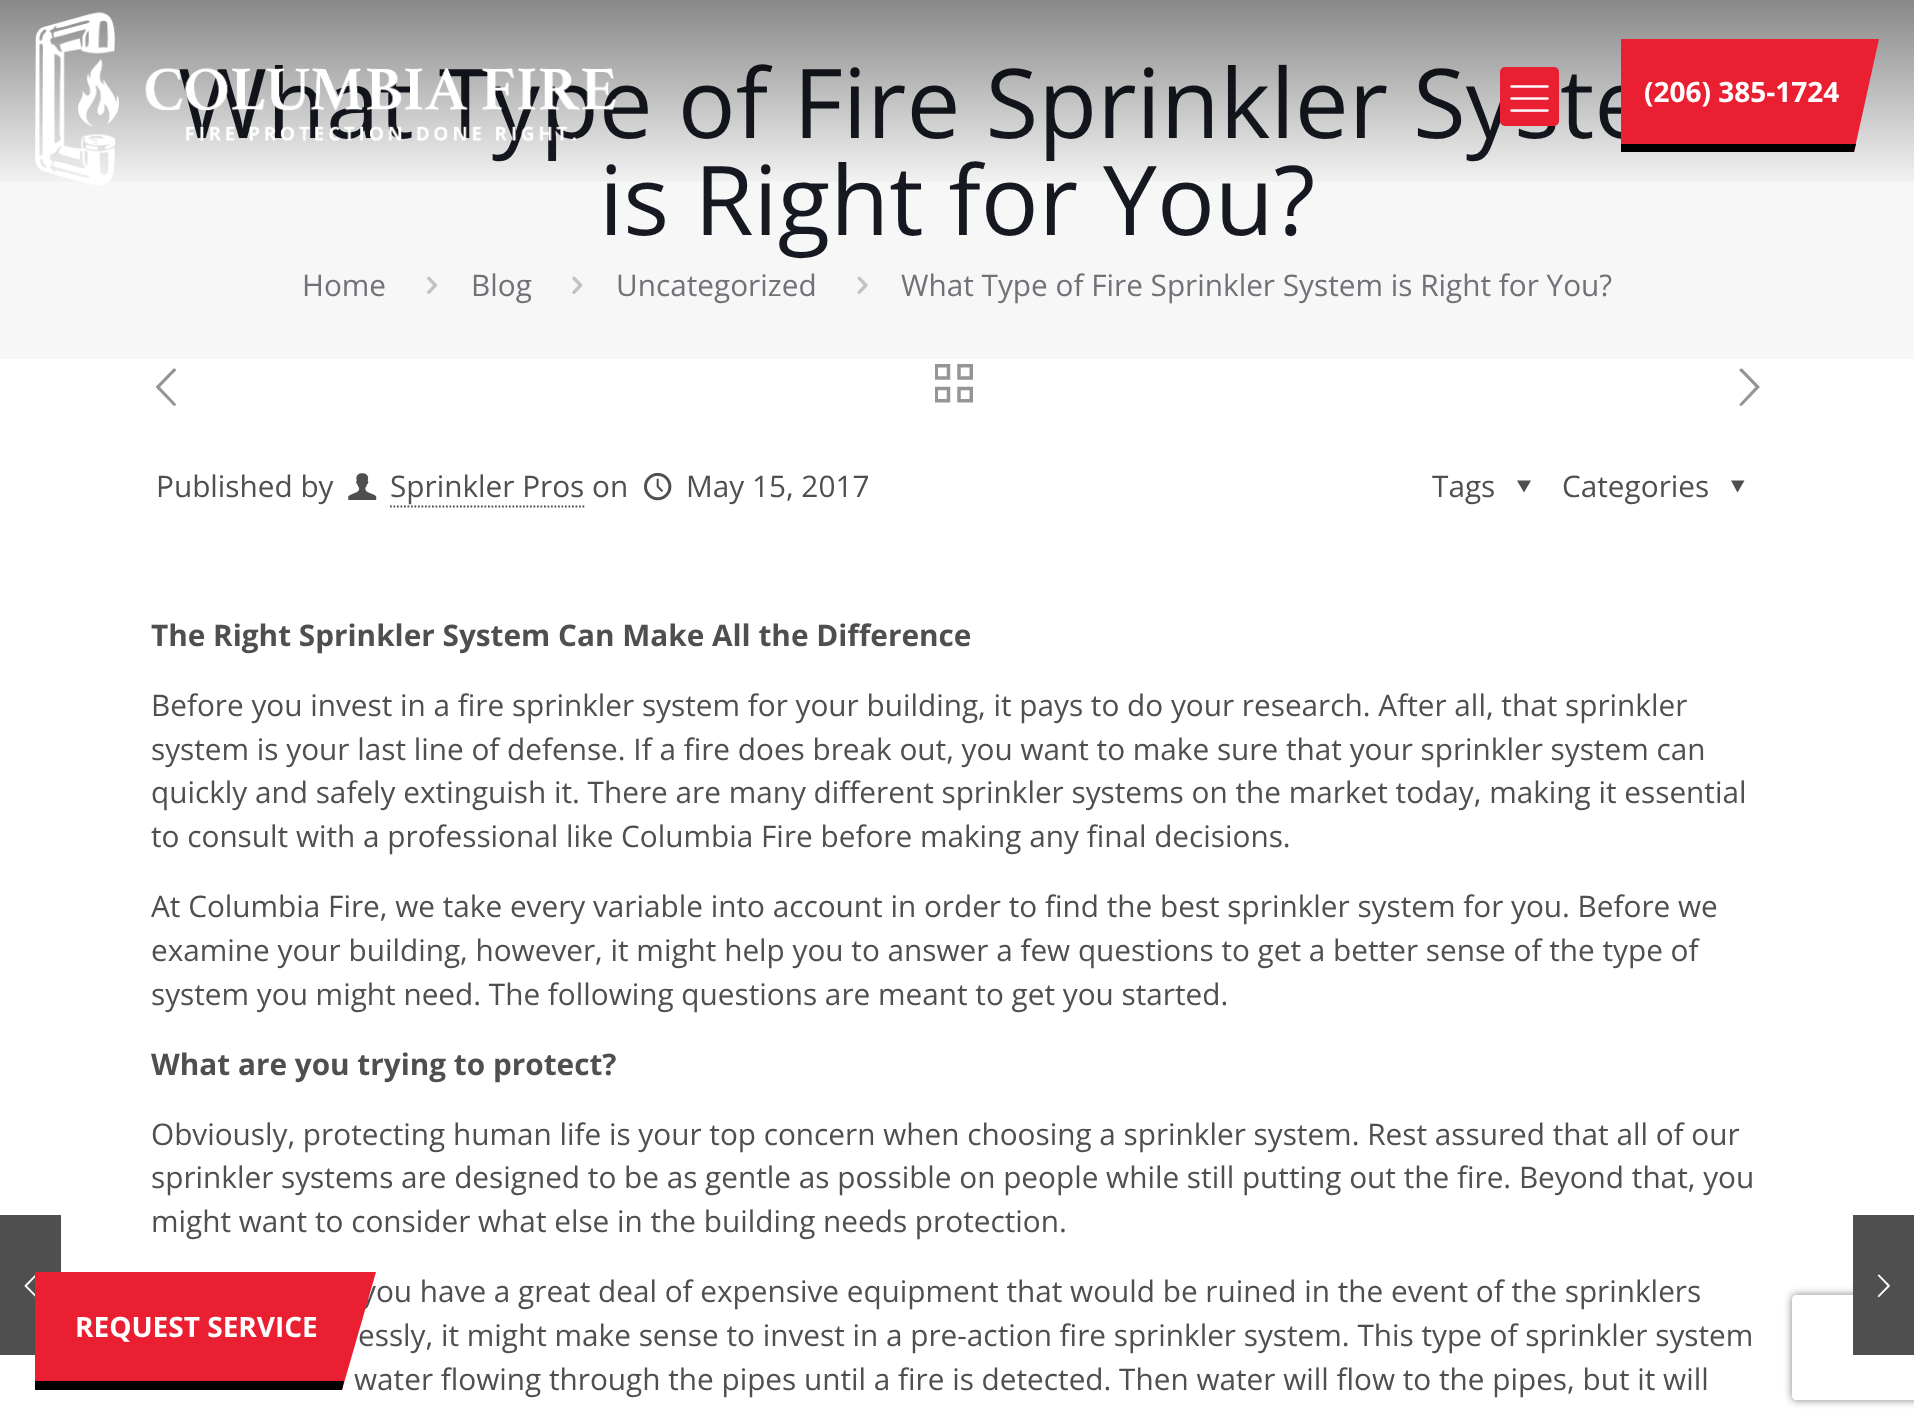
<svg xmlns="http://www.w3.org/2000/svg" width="1914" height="1424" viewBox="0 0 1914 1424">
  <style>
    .t1 { font: 96.25px Open Sans; fill: #161922; }
    .t2 { font: 29.75px Open Sans; fill: #707277; }
    .t3 { font: bold 28px Open Sans; fill: #fff; }
    .t4 { font: 29.75px Open Sans; fill: #4f4f4f; }
    .t5 { font: bold 29.75px Open Sans; fill: #4f4f4f; }
  </style>
  <defs>
    <linearGradient id="g1" gradientUnits="userSpaceOnUse" x1="957" y1="0" x2="957" y2="191"><stop offset="0" stop-color="#000" stop-opacity="0.45"/><stop offset="1" stop-color="#000" stop-opacity="0"/></linearGradient>
    <clipPath id="clip1"><path d="M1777 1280H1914V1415H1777ZM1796 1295H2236C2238 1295 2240 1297 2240 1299V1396C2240 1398 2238 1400 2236 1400H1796C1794 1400 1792 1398 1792 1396V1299C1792 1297 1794 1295 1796 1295Z" clip-rule="evenodd"/></clipPath>
  </defs>
  <rect width="100%" height="100%" fill="#fff"/>
  <rect x="0" y="1215" width="61" height="140" fill="#4f4f4f"/>
  <image x="24" y="1275" width="11" height="22" href="images/1.png"/>
  <rect x="0" y="0" width="1914" height="359" fill="#f7f7f7"/>
  <text x="178" y="138" class="t1">What Type of Fire Sprinkler Syste</text>
  <text x="599" y="235" class="t1">is Right for You?</text>
  <text x="302" y="296" class="t2">Home</text>
  <image x="427" y="276" width="10" height="18" href="images/2.png"/>
  <text x="471" y="296" class="t2">Blog</text>
  <image x="572" y="276" width="11" height="18" href="images/3.png"/>
  <text x="616" y="296" class="t2">Uncategorized</text>
  <image x="857" y="276" width="11" height="18" href="images/4.png"/>
  <text x="901" y="296" class="t2">What Type of Fire Sprinkler System is Right for You?</text>
  <rect x="0" y="0" width="1914" height="182" fill="url(#g1)"/>
  <image x="35" y="12" width="581" height="173" href="images/5.png"/>
  <rect x="1500" y="67" width="59" height="59" rx="5" fill="#eb1f32"/>
  <image x="1510" y="85" width="39" height="27" href="images/6.png"/>
  <path d="M1621 152V39H1879L1854 152Z" fill="#eb1f32"/>
  <path d="M1621 152V144H1856L1854 152Z" fill="#000"/>
  <text x="1644" y="102" class="t3">(206) 385-1724</text>
  <path d="M175.5 403.5L176 404.5C175 408.5 171 403 170.5 402.5L156 387.5V387V386.5L173.5 368.5H174.5C178.5 369.5 173.5 373 173 373.5L160 387Z" fill="#959595"/>
  <image x="935" y="364" width="38" height="39" href="images/7.png"/>
  <path d="M1740 403.5L1755.5 387L1742.5 373.5C1742 373 1737 369.5 1741 368.5H1742L1759.5 386.5L1760 387L1759.5 387.5L1745 402.5C1744.5 403 1740.5 408.5 1739.5 404.5Z" fill="#959595"/>
  <text x="156" y="497" class="t4">Published by</text>
  <image x="348" y="473" width="29" height="27" href="images/8.png"/>
  <text x="390" y="497" class="t4">Sprinkler Pros on</text>
  <path d="M390 506.5H584.5" fill="none" stroke="#4f4f4f" stroke-width="1.8" stroke-dasharray="1.75 1.75"/>
  <image x="644" y="472" width="28" height="29" href="images/9.png"/>
  <text x="686" y="497" class="t4">May 15, 2017</text>
  <text x="1432" y="497" class="t4">Tags</text>
  <path d="M1531 480.5L1524 492.5L1517 480.5Z" fill="#4f4f4f"/>
  <text x="1562" y="497" class="t4">Categories</text>
  <path d="M1744.5 480.5L1737.5 492.5L1731 480.5Z" fill="#4f4f4f"/>
  <text x="151" y="646" class="t5">The Right Sprinkler System Can Make All the Difference</text>
  <text x="151" y="716" class="t4">Before you invest in a fire sprinkler system for your building, it pays to do your research. After all, that sprinkler</text>
  <text x="151" y="760" class="t4">system is your last line of defense. If a fire does break out, you want to make sure that your sprinkler system can</text>
  <text x="151" y="803" class="t4">quickly and safely extinguish it. There are many different sprinkler systems on the market today, making it essential</text>
  <text x="151" y="847" class="t4">to consult with a professional like Columbia Fire before making any final decisions.</text>
  <text x="151" y="917" class="t4">At Columbia Fire, we take every variable into account in order to find the best sprinkler system for you. Before we</text>
  <text x="151" y="961" class="t4">examine your building, however, it might help you to answer a few questions to get a better sense of the type of</text>
  <text x="151" y="1005" class="t4">system you might need. The following questions are meant to get you started.</text>
  <text x="151" y="1075" class="t5">What are you trying to protect?</text>
  <text x="151" y="1145" class="t4">Obviously, protecting human life is your top concern when choosing a sprinkler system. Rest assured that all of our</text>
  <text x="151" y="1188" class="t4">sprinkler systems are designed to be as gentle as possible on people while still putting out the fire. Beyond that, you</text>
  <text x="151" y="1232" class="t4">might want to consider what else in the building needs protection.</text>
  <text x="361" y="1302" class="t4">you have a great deal of expensive equipment that would be ruined in the event of the sprinklers</text>
  <text x="358" y="1346" class="t4">essly, it might make sense to invest in a pre-action fire sprinkler system. This type of sprinkler system</text>
  <text x="354" y="1390" class="t4">water flowing through the pipes until a fire is detected. Then water will flow to the pipes, but it will</text>
  <g clip-path="url(#clip1)">
    <rect x="1792" y="1295" width="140" height="105" rx="4" fill="#808080" filter="blur(4.5px)"/>
  </g>
  <rect x="1853" y="1215" width="61" height="140" fill="#4f4f4f"/>
  <image x="1877" y="1274" width="13" height="24" href="images/10.png"/>
  <path d="M35 1272V1390H342L376 1272Z" fill="#eb1f32"/>
  <path d="M35 1381V1390H342L344 1381Z" fill="#000"/>
  <text x="75" y="1337" class="t3">REQUEST SERVICE</text>
</svg>
